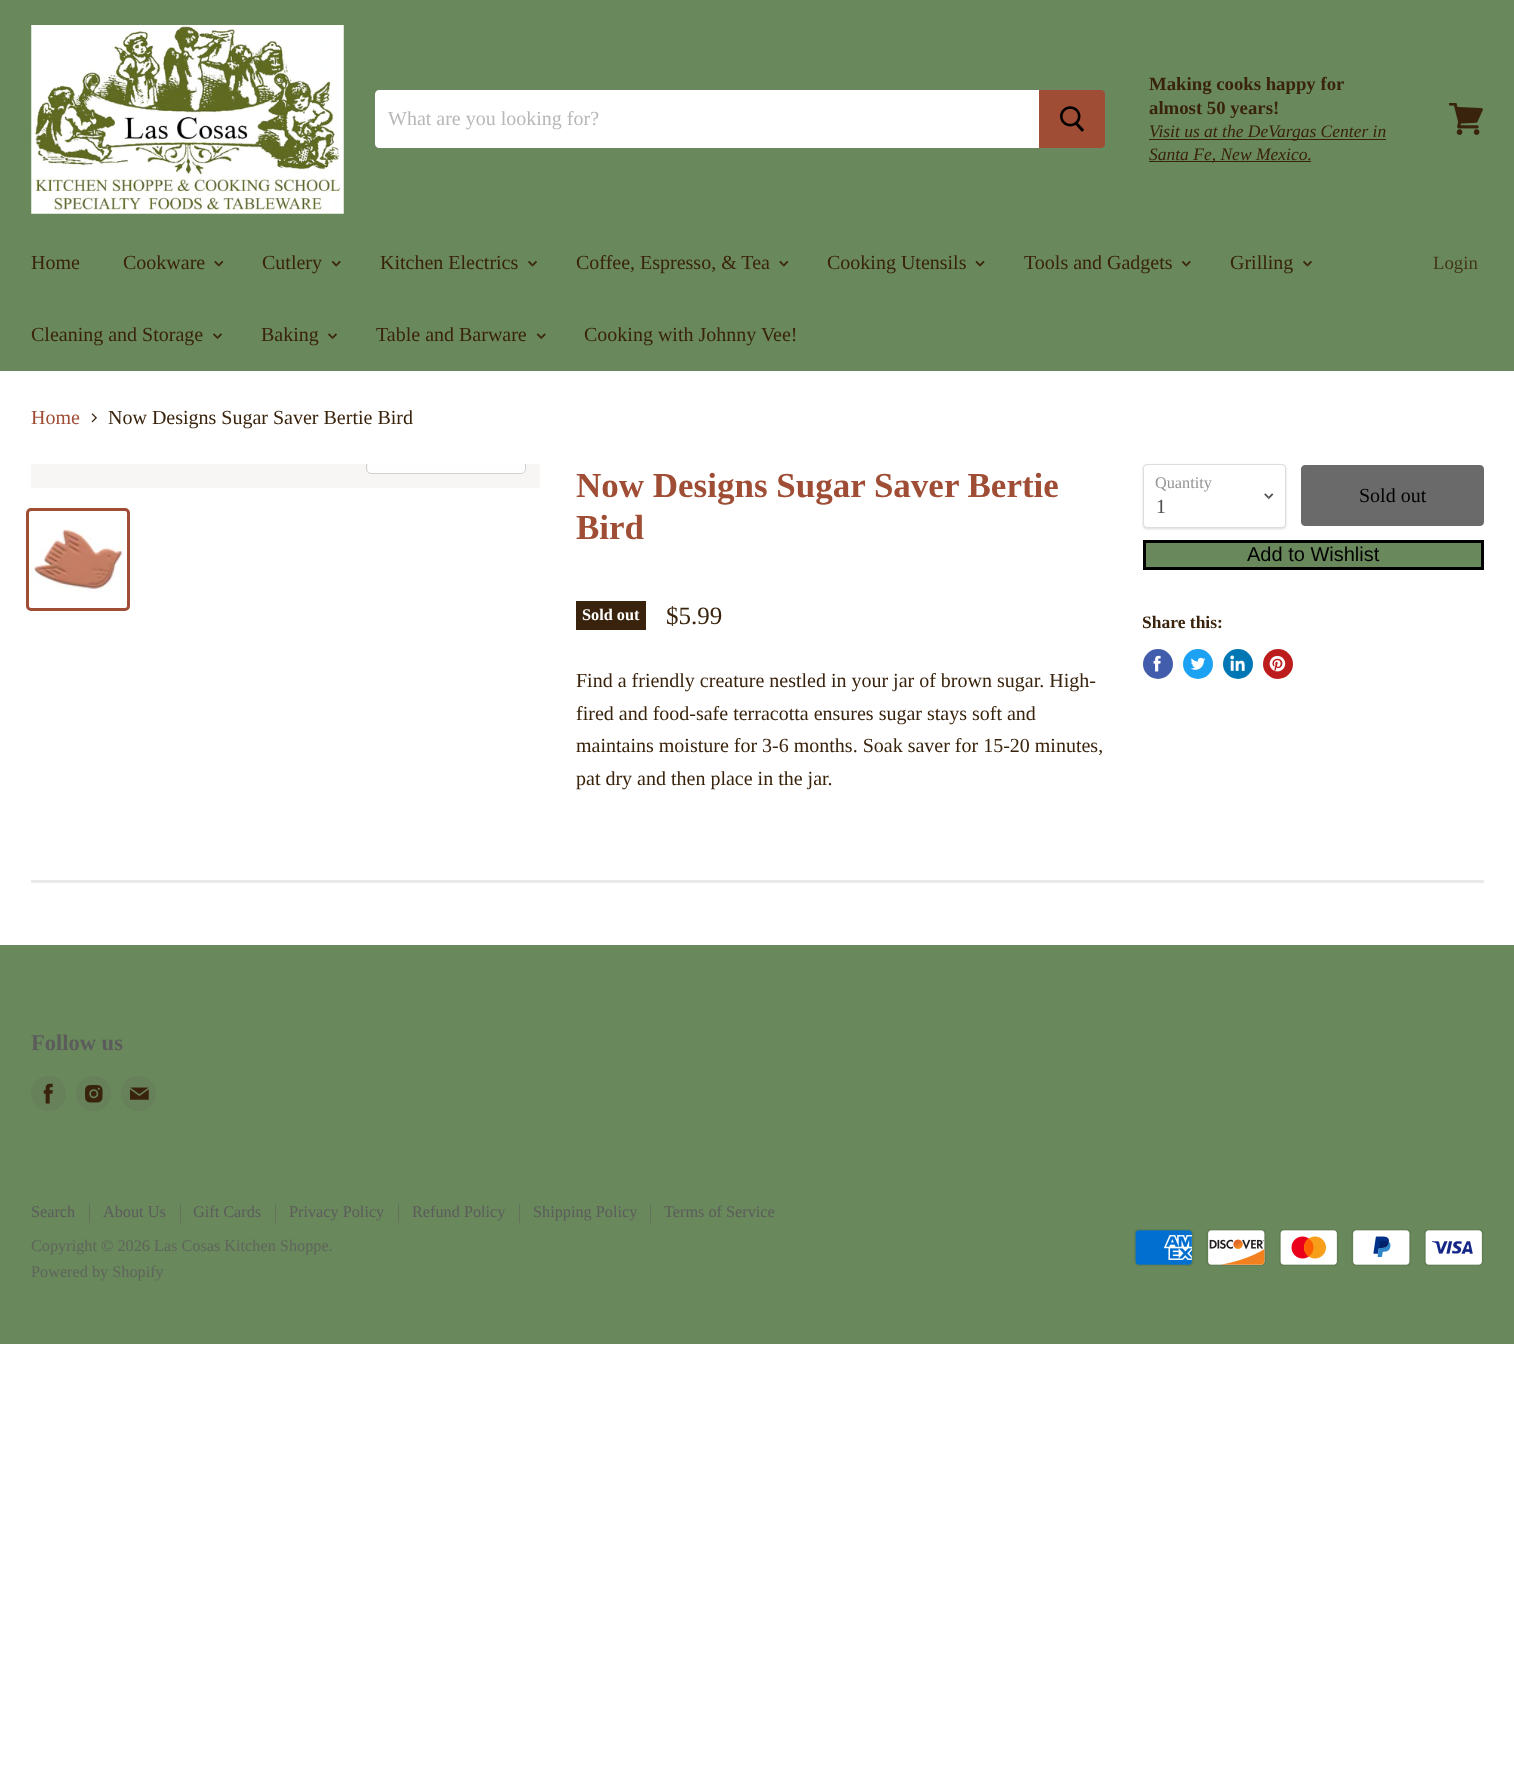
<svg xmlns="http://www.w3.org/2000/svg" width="1514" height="1767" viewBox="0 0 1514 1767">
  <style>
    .t1 { font: 20px Liberation Serif; fill: #b8b8b8; }
    .t2 { font: bold 18.75px Liberation Serif; fill: #39230c; }
    .t3 { font: italic 17.5px Liberation Serif; fill: #39230c; }
    .t4 { font: 20px Liberation Serif; fill: #39230c; }
    .t5 { font: 18.75px Liberation Serif; fill: #43371c; }
    .t6 { font: 20px Liberation Serif; fill: #9f4d34; }
    .t7 { font: bold 35px Liberation Serif; fill: #9f4d34; }
    .t8 { font: bold 16.25px Liberation Serif; fill: #fff; }
    .t9 { font: 25px Liberation Serif; fill: #39230c; }
    .t10 { font: 16.25px Liberation Serif; fill: #949494; }
    .t11 { font: 20px Liberation Serif; fill: #4d4d4d; }
    .t12 { font: 20px Liberation Serif; fill: #000; }
    .t13 { font: 20px Liberation Sans; fill: #000; }
    .t14 { font: bold 17.5px Liberation Serif; fill: #39230c; }
    .t15 { font: bold 22.5px Liberation Serif; fill: #5c5c5c; }
    .t16 { font: 16.25px Liberation Serif; fill: #5c5c5c; }
    .t17 { font: 16.25px Liberation Serif; fill: #5f655c; }
  </style>
  <defs>
    <clipPath id="clip1"><rect x="31" y="464" width="509" height="24"/></clipPath>
  </defs>
  <rect width="100%" height="100%" fill="#fff"/>
  <rect x="0" y="0" width="1514" height="371" fill="#69885b"/>
  <image x="31" y="25" width="313" height="189" href="images/1.png"/>
  <rect x="374.5" y="89.5" width="731" height="59" rx="4.5" fill="none" stroke="#6e8663"/>
  <path d="M379 90H1039V148H379C377 148 375 146 375 144V94C375 92 377 90 379 90Z" fill="#fff"/>
  <text x="388" y="125" class="t1">What are you looking for?</text>
  <path d="M1039.5 90.5H1101C1103 90.5 1104.5 92 1104.5 94V144C1104.5 146 1103 147.5 1101 147.5H1039.5Z" fill="#9f4d34" stroke="#9f4d34"/>
  <image x="1060" y="106" width="25" height="26" href="images/2.png"/>
  <text x="1149" y="90" class="t2">Making cooks happy for</text>
  <text x="1149" y="114" class="t2">almost 50 years!</text>
  <rect x="1149" y="139" width="237" height="1" fill="#39230c"/>
  <text x="1149" y="137" class="t3">Visit us at the DeVargas Center in</text>
  <rect x="1149" y="161" width="162" height="1" fill="#39230c"/>
  <text x="1149" y="160" class="t3">Santa Fe, New Mexico.</text>
  <image x="1449" y="103" width="34" height="32" href="images/3.png"/>
  <text x="31" y="269" class="t4">Home</text>
  <text x="123" y="269" class="t4">Cookware</text>
  <image x="214" y="260" width="10" height="7" href="images/4.png"/>
  <text x="262" y="269" class="t4">Cutlery</text>
  <image x="331" y="260" width="10" height="7" href="images/5.png"/>
  <text x="380" y="269" class="t4">Kitchen Electrics</text>
  <image x="528" y="260" width="9" height="7" href="images/6.png"/>
  <text x="576" y="269" class="t4">Coffee, Espresso, &amp; Tea</text>
  <image x="779" y="260" width="10" height="7" href="images/4.png"/>
  <text x="827" y="269" class="t4">Cooking Utensils</text>
  <image x="975" y="260" width="10" height="7" href="images/7.png"/>
  <text x="1024" y="269" class="t4">Tools and Gadgets</text>
  <image x="1181" y="260" width="10" height="7" href="images/5.png"/>
  <text x="1230" y="269" class="t4">Grilling</text>
  <image x="1303" y="260" width="9" height="7" href="images/6.png"/>
  <text x="31" y="341" class="t4">Cleaning and Storage</text>
  <image x="213" y="333" width="9" height="7" href="images/8.png"/>
  <text x="261" y="341" class="t4">Baking</text>
  <image x="328" y="333" width="9" height="7" href="images/8.png"/>
  <text x="376" y="341" class="t4">Table and Barware</text>
  <image x="536" y="333" width="10" height="7" href="images/9.png"/>
  <text x="584" y="341" class="t4">Cooking with Johnny Vee!</text>
  <text x="1433" y="269" class="t5">Login</text>
  <text x="31" y="424" class="t6">Home</text>
  <image x="91" y="413" width="6" height="10" href="images/10.png"/>
  <text x="108" y="424" class="t4">Now Designs Sugar Saver Bertie Bird</text>
  <rect x="31" y="464" width="509" height="24" fill="#f7f6f5"/>
  <g clip-path="url(#clip1)">
    <rect x="366.5" y="436.5" width="159" height="37" rx="4.5" fill="none" stroke="#d2d1d0"/>
  </g>
  <path d="M368 464H525V469C525 471 523 473 521 473H372C370 473 368 471 368 469Z" fill="#ffffffe6"/>
  <rect x="27.5" y="509.5" width="101" height="100" rx="3.5" fill="none" stroke="#9f4d34" stroke-width="3"/>
  <image x="31" y="529" width="92" height="64" href="images/11.png"/>
  <text x="576" y="497" class="t7">Now Designs Sugar Saver Bertie</text>
  <text x="576" y="539" class="t7">Bird</text>
  <rect x="576" y="601" width="70" height="29" fill="#39230c"/>
  <text x="582" y="620" class="t8">Sold out</text>
  <text x="666" y="624" class="t9">$5.99</text>
  <text x="576" y="687" class="t4">Find a friendly creature nestled in your jar of brown sugar. High-</text>
  <text x="576" y="720" class="t4">fired and food-safe terracotta ensures sugar stays soft and</text>
  <text x="576" y="752" class="t4">maintains moisture for 3-6 months. Soak saver for 15-20 minutes,</text>
  <text x="576" y="785" class="t4">pat dry and then place in the jar.</text>
  <rect x="1143" y="465" width="143" height="64" rx="4" fill="#00000026" filter="blur(1px)"/>
  <rect x="1143.5" y="464.5" width="142" height="63" rx="3.5" fill="#fff" stroke="#ddd"/>
  <text x="1155" y="488" class="t10">Quantity</text>
  <image x="1264" y="493" width="10" height="7" href="images/12.png"/>
  <text x="1156" y="513" class="t11">1</text>
  <rect x="1301.5" y="465.5" width="182" height="60" rx="3.5" fill="#6a6a6a" stroke="#6a6a6a"/>
  <text x="1359" y="502" class="t12">Sold out</text>
  <rect x="1144.5" y="541.5" width="338" height="27" fill="#69885b" stroke="#000" stroke-width="3"/>
  <text x="1247" y="561" class="t13">Add to Wishlist</text>
  <text x="1142" y="628" class="t14">Share this:</text>
  <circle cx="1158" cy="664" r="15" fill="#425dab"/>
  <image x="1153" y="655" width="8" height="17" href="images/13.png"/>
  <circle cx="1198" cy="664" r="15" fill="#1da1f2"/>
  <image x="1190" y="657" width="16" height="13" href="images/14.png"/>
  <circle cx="1238" cy="664" r="15" fill="#0077b5"/>
  <image x="1230" y="655" width="15" height="16" href="images/15.png"/>
  <circle cx="1278" cy="664" r="15" fill="#bd1c1c"/>
  <image x="1269" y="655" width="17" height="17" href="images/16.png"/>
  <rect x="31" y="880" width="1453" height="3" fill="#7f7f7f29"/>
  <rect x="0" y="945" width="1514" height="399" fill="#69885b"/>
  <text x="31" y="1050" class="t15">Follow us</text>
  <circle cx="48.5" cy="1093.5" r="17.5" fill="#67815b"/>
  <image x="43" y="1083" width="10" height="21" href="images/17.png"/>
  <circle cx="93.5" cy="1093.5" r="17.5" fill="#67815b"/>
  <image x="85" y="1085" width="18" height="18" href="images/18.png"/>
  <circle cx="138.5" cy="1093.5" r="17.5" fill="#67815b"/>
  <image x="130" y="1087" width="19" height="13" href="images/19.png"/>
  <rect x="89" y="1204" width="1" height="19" fill="#63725c"/>
  <text x="31" y="1217" class="t16">Search</text>
  <rect x="180" y="1204" width="1" height="19" fill="#63725c"/>
  <text x="103" y="1217" class="t16">About Us</text>
  <rect x="275" y="1204" width="1" height="19" fill="#63725c"/>
  <text x="193" y="1217" class="t16">Gift Cards</text>
  <rect x="398" y="1204" width="1" height="19" fill="#63725c"/>
  <text x="289" y="1217" class="t16">Privacy Policy</text>
  <rect x="519" y="1204" width="1" height="19" fill="#63725c"/>
  <text x="412" y="1217" class="t16">Refund Policy</text>
  <rect x="650" y="1204" width="1" height="19" fill="#63725c"/>
  <text x="533" y="1217" class="t16">Shipping Policy</text>
  <text x="664" y="1217" class="t16">Terms of Service</text>
  <text x="31" y="1251" class="t17">Copyright © 2026 Las Cosas Kitchen Shoppe.</text>
  <text x="31" y="1277" class="t17">Powered by Shopify</text>
  <image x="1134" y="1229" width="60" height="37" href="images/20.png"/>
  <image x="1206" y="1229" width="60" height="37" href="images/21.png"/>
  <image x="1279" y="1229" width="60" height="37" href="images/22.png"/>
  <image x="1351" y="1229" width="60" height="37" href="images/23.png"/>
  <image x="1424" y="1229" width="60" height="37" href="images/24.png"/>
</svg>
